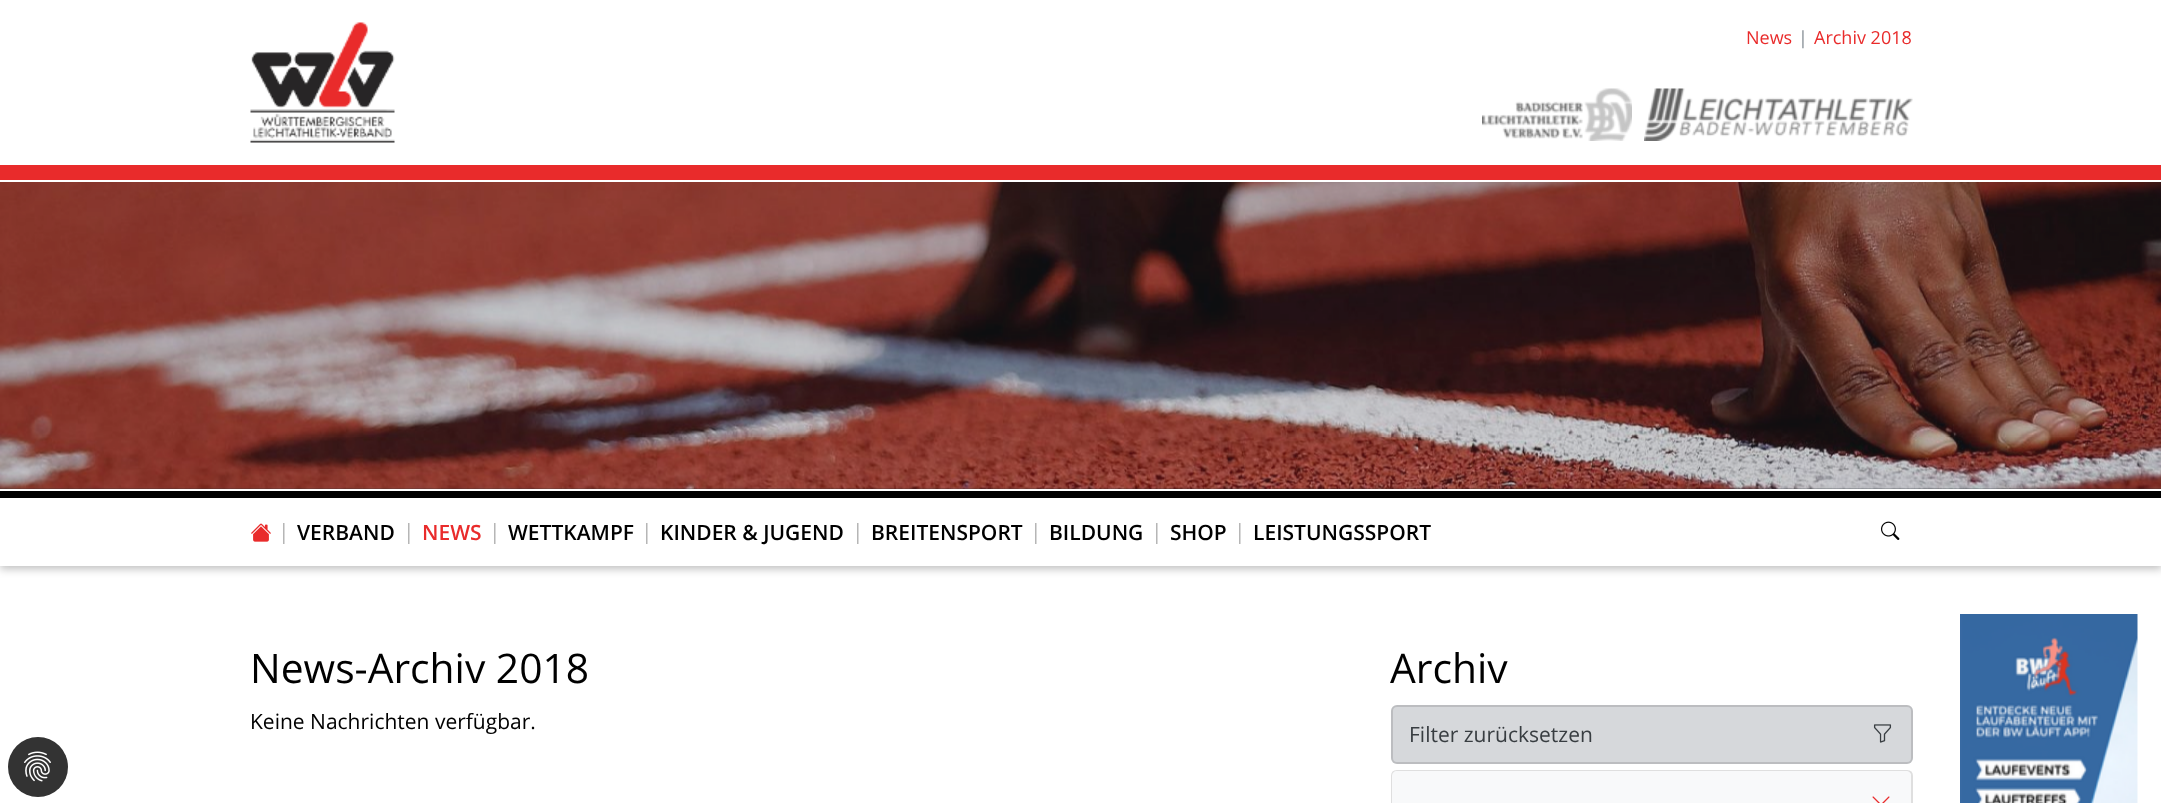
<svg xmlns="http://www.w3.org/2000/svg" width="2161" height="803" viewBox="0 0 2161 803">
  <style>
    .t1 { font: 18px Open Sans; fill: #e92b2b; }
    .t2 { font: 18px Open Sans; fill: #818a91; }
    .t3 { font: 21px Open Sans; fill: #b3b3b3; }
    .t4 { font: 600 21px Open Sans; fill: #000; }
    .t5 { font: 600 21px Open Sans; fill: #e92b2b; }
    .t6 { font: 40.75px Open Sans; fill: #000; }
    .t7 { font: 21px Open Sans; fill: #000; }
    .t8 { font: 21px Open Sans; fill: #383d41; }
  </style>
  <rect width="100%" height="100%" fill="#fff"/>
  <rect x="0" y="165" width="2161" height="15" fill="#e92b2b"/>
  <image x="250" y="22" width="145" height="121" href="images/1.png"/>
  <text x="1746" y="44" class="t1">News</text>
  <text x="1798" y="44" class="t2">|</text>
  <text x="1814" y="44" class="t1">Archiv 2018</text>
  <image x="1482" y="88" width="150" height="53" href="images/2.png"/>
  <image x="1644" y="88" width="269" height="53" href="images/3.png"/>
  <rect x="0" y="182" width="2161" height="307" fill="#343a40"/>
  <image x="0" y="182" width="2161" height="307" href="images/4.png"/>
  <rect x="0" y="494" width="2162" height="75" fill="#00000040" filter="blur(4px)"/>
  <rect x="0" y="498" width="2161" height="68" fill="#fff"/>
  <rect x="0" y="491" width="2161" height="7" fill="#000"/>
  <rect x="0" y="489" width="2161" height="2" fill="#fff"/>
  <image x="251" y="523" width="20" height="19" href="images/5.png"/>
  <text x="278" y="539" class="t3">|</text>
  <text x="297" y="540" class="t4">VERBAND</text>
  <text x="403" y="539" class="t3">|</text>
  <text x="422" y="540" class="t5">NEWS</text>
  <text x="489" y="539" class="t3">|</text>
  <text x="508" y="540" class="t4">WETTKAMPF</text>
  <text x="641" y="539" class="t3">|</text>
  <text x="660" y="540" class="t4">KINDER &amp; JUGEND</text>
  <text x="852" y="539" class="t3">|</text>
  <text x="871" y="540" class="t4">BREITENSPORT</text>
  <text x="1030" y="539" class="t3">|</text>
  <text x="1049" y="540" class="t4">BILDUNG</text>
  <text x="1151" y="539" class="t3">|</text>
  <text x="1170" y="540" class="t4">SHOP</text>
  <text x="1234" y="539" class="t3">|</text>
  <text x="1253" y="540" class="t4">LEISTUNGSSPORT</text>
  <image x="1881" y="521" width="19" height="19" href="images/6.png"/>
  <text x="250" y="683" class="t6">News-Archiv 2018</text>
  <text x="250" y="729" class="t7">Keine Nachrichten verfügbar.</text>
  <text x="1390" y="683" class="t6">Archiv</text>
  <rect x="1391" y="705" width="522" height="59" rx="6" fill="#d6d8db"/>
  <rect x="1392" y="706" width="520" height="57" rx="5" fill="none" stroke="#0000001f" stroke-width="2"/>
  <text x="1409" y="742" class="t8">Filter zurücksetzen</text>
  <image x="1873" y="724" width="19" height="19" href="images/7.png"/>
  <path d="M1397 771H1907C1910 771 1912 773 1912 776V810H1392V776C1392 773 1394 771 1397 771Z" fill="none" stroke="#dfdfdf" stroke-width="2"/>
  <path d="M1397 771H1906C1909 771 1911 773 1911 776V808H1392V776C1392 773 1394 771 1397 771Z" fill="#f8f9fa"/>
  <image x="1872" y="796" width="18" height="7" href="images/8.png"/>
  <image x="1960" y="614" width="178" height="189" href="images/9.png"/>
  <circle cx="38" cy="767" r="30" fill="#333"/>
  <image x="24" y="751" width="27" height="31" href="images/10.png"/>
</svg>
